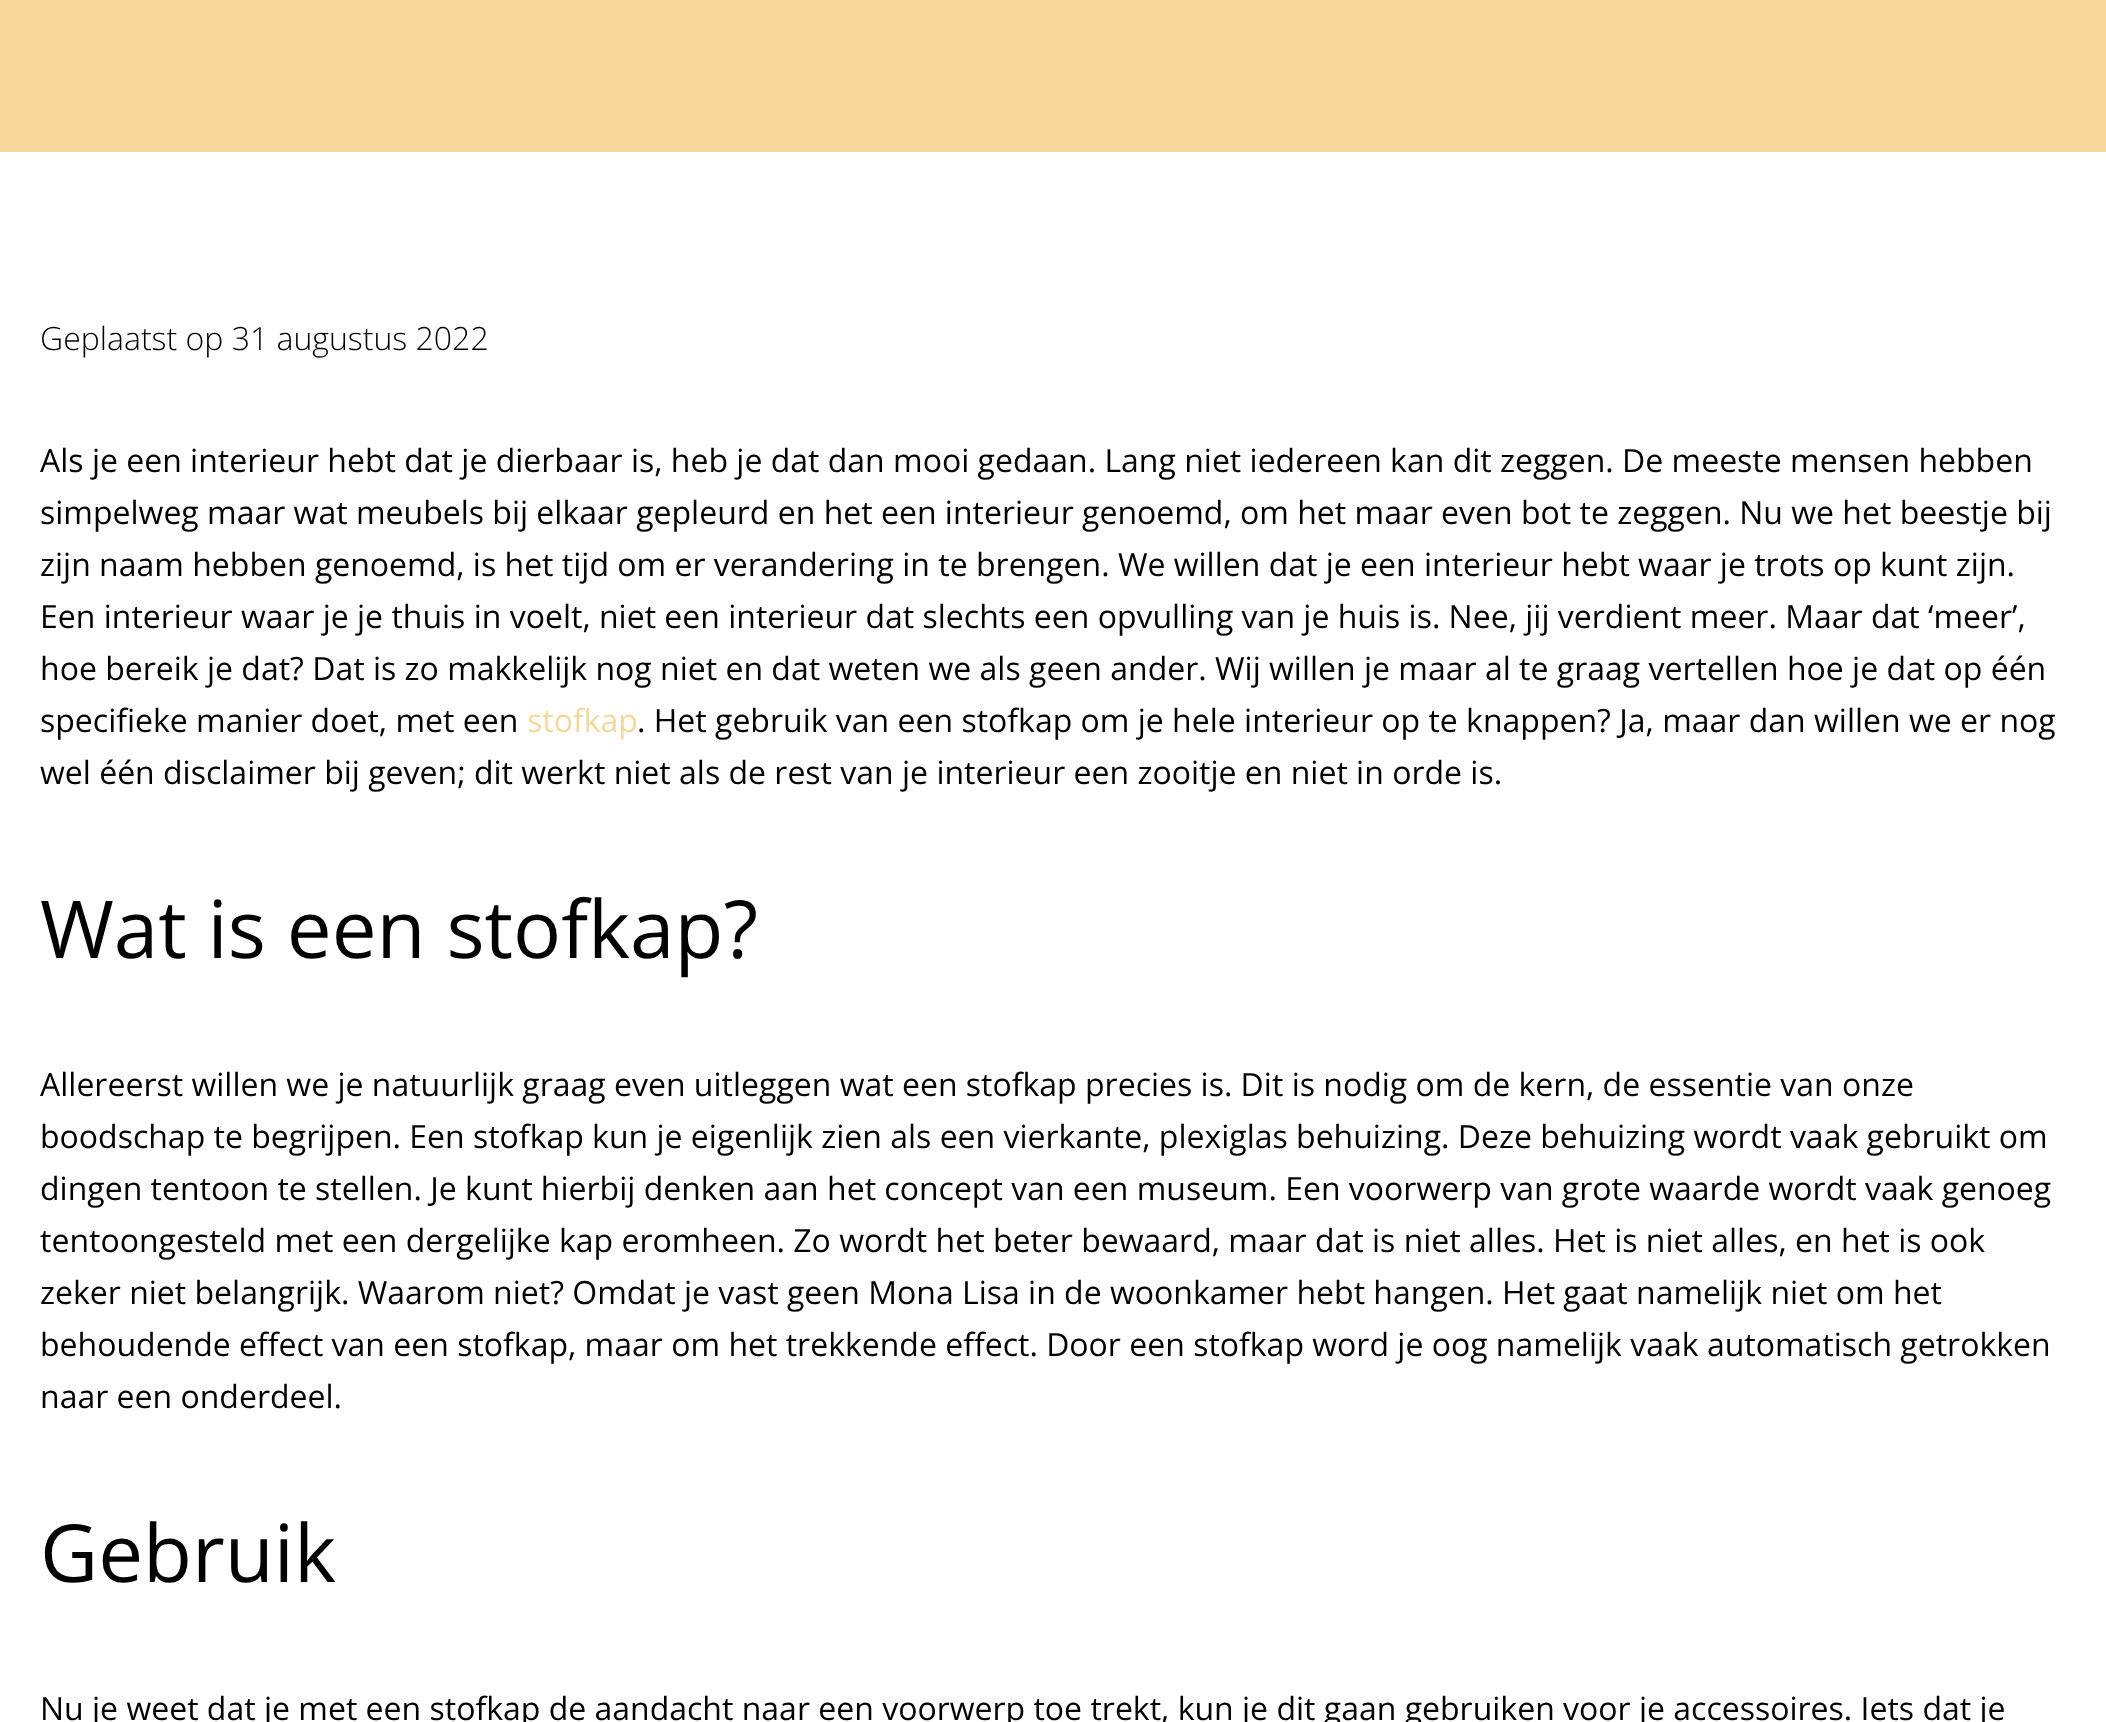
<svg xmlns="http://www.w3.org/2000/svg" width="2106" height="1722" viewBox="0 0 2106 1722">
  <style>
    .t1 { font: 300 32px Open Sans; fill: #000; }
    .t2 { font: 32px Open Sans; fill: #000; }
    .t3 { font: 32px Open Sans; fill: #f7d89a; }
    .t4 { font: 80px Open Sans; fill: #000; }
  </style>
  <rect width="100%" height="100%" fill="#fff"/>
  <rect x="0" y="0" width="2106" height="152" fill="#f7d89a"/>
  <text x="40" y="350" class="t1">Geplaatst op 31 augustus 2022</text>
  <text x="40" y="472" class="t2">Als je een interieur hebt dat je dierbaar is, heb je dat dan mooi gedaan. Lang niet iedereen kan dit zeggen. De meeste mensen hebben</text>
  <text x="40" y="524" class="t2">simpelweg maar wat meubels bij elkaar gepleurd en het een interieur genoemd, om het maar even bot te zeggen. Nu we het beestje bij</text>
  <text x="40" y="576" class="t2">zijn naam hebben genoemd, is het tijd om er verandering in te brengen. We willen dat je een interieur hebt waar je trots op kunt zijn.</text>
  <text x="40" y="628" class="t2">Een interieur waar je je thuis in voelt, niet een interieur dat slechts een opvulling van je huis is. Nee, jij verdient meer. Maar dat ‘meer’,</text>
  <text x="40" y="680" class="t2">hoe bereik je dat? Dat is zo makkelijk nog niet en dat weten we als geen ander. Wij willen je maar al te graag vertellen hoe je dat op één</text>
  <text x="40" y="732" class="t2">specifieke manier doet, met een</text>
  <text x="527" y="732" class="t3">stofkap</text>
  <text x="637" y="732" class="t2">. Het gebruik van een stofkap om je hele interieur op te knappen? Ja, maar dan willen we er nog</text>
  <text x="40" y="784" class="t2">wel één disclaimer bij geven; dit werkt niet als de rest van je interieur een zooitje en niet in orde is.</text>
  <text x="40" y="958" class="t4">Wat is een stofkap?</text>
  <text x="40" y="1096" class="t2">Allereerst willen we je natuurlijk graag even uitleggen wat een stofkap precies is. Dit is nodig om de kern, de essentie van onze</text>
  <text x="40" y="1148" class="t2">boodschap te begrijpen. Een stofkap kun je eigenlijk zien als een vierkante, plexiglas behuizing. Deze behuizing wordt vaak gebruikt om</text>
  <text x="40" y="1200" class="t2">dingen tentoon te stellen. Je kunt hierbij denken aan het concept van een museum. Een voorwerp van grote waarde wordt vaak genoeg</text>
  <text x="40" y="1252" class="t2">tentoongesteld met een dergelijke kap eromheen. Zo wordt het beter bewaard, maar dat is niet alles. Het is niet alles, en het is ook</text>
  <text x="40" y="1304" class="t2">zeker niet belangrijk. Waarom niet? Omdat je vast geen Mona Lisa in de woonkamer hebt hangen. Het gaat namelijk niet om het</text>
  <text x="40" y="1356" class="t2">behoudende effect van een stofkap, maar om het trekkende effect. Door een stofkap word je oog namelijk vaak automatisch getrokken</text>
  <text x="40" y="1408" class="t2">naar een onderdeel.</text>
  <text x="40" y="1582" class="t4">Gebruik</text>
  <text x="40" y="1720" class="t2">Nu je weet dat je met een stofkap de aandacht naar een voorwerp toe trekt, kun je dit gaan gebruiken voor je accessoires. Iets dat je</text>
</svg>
